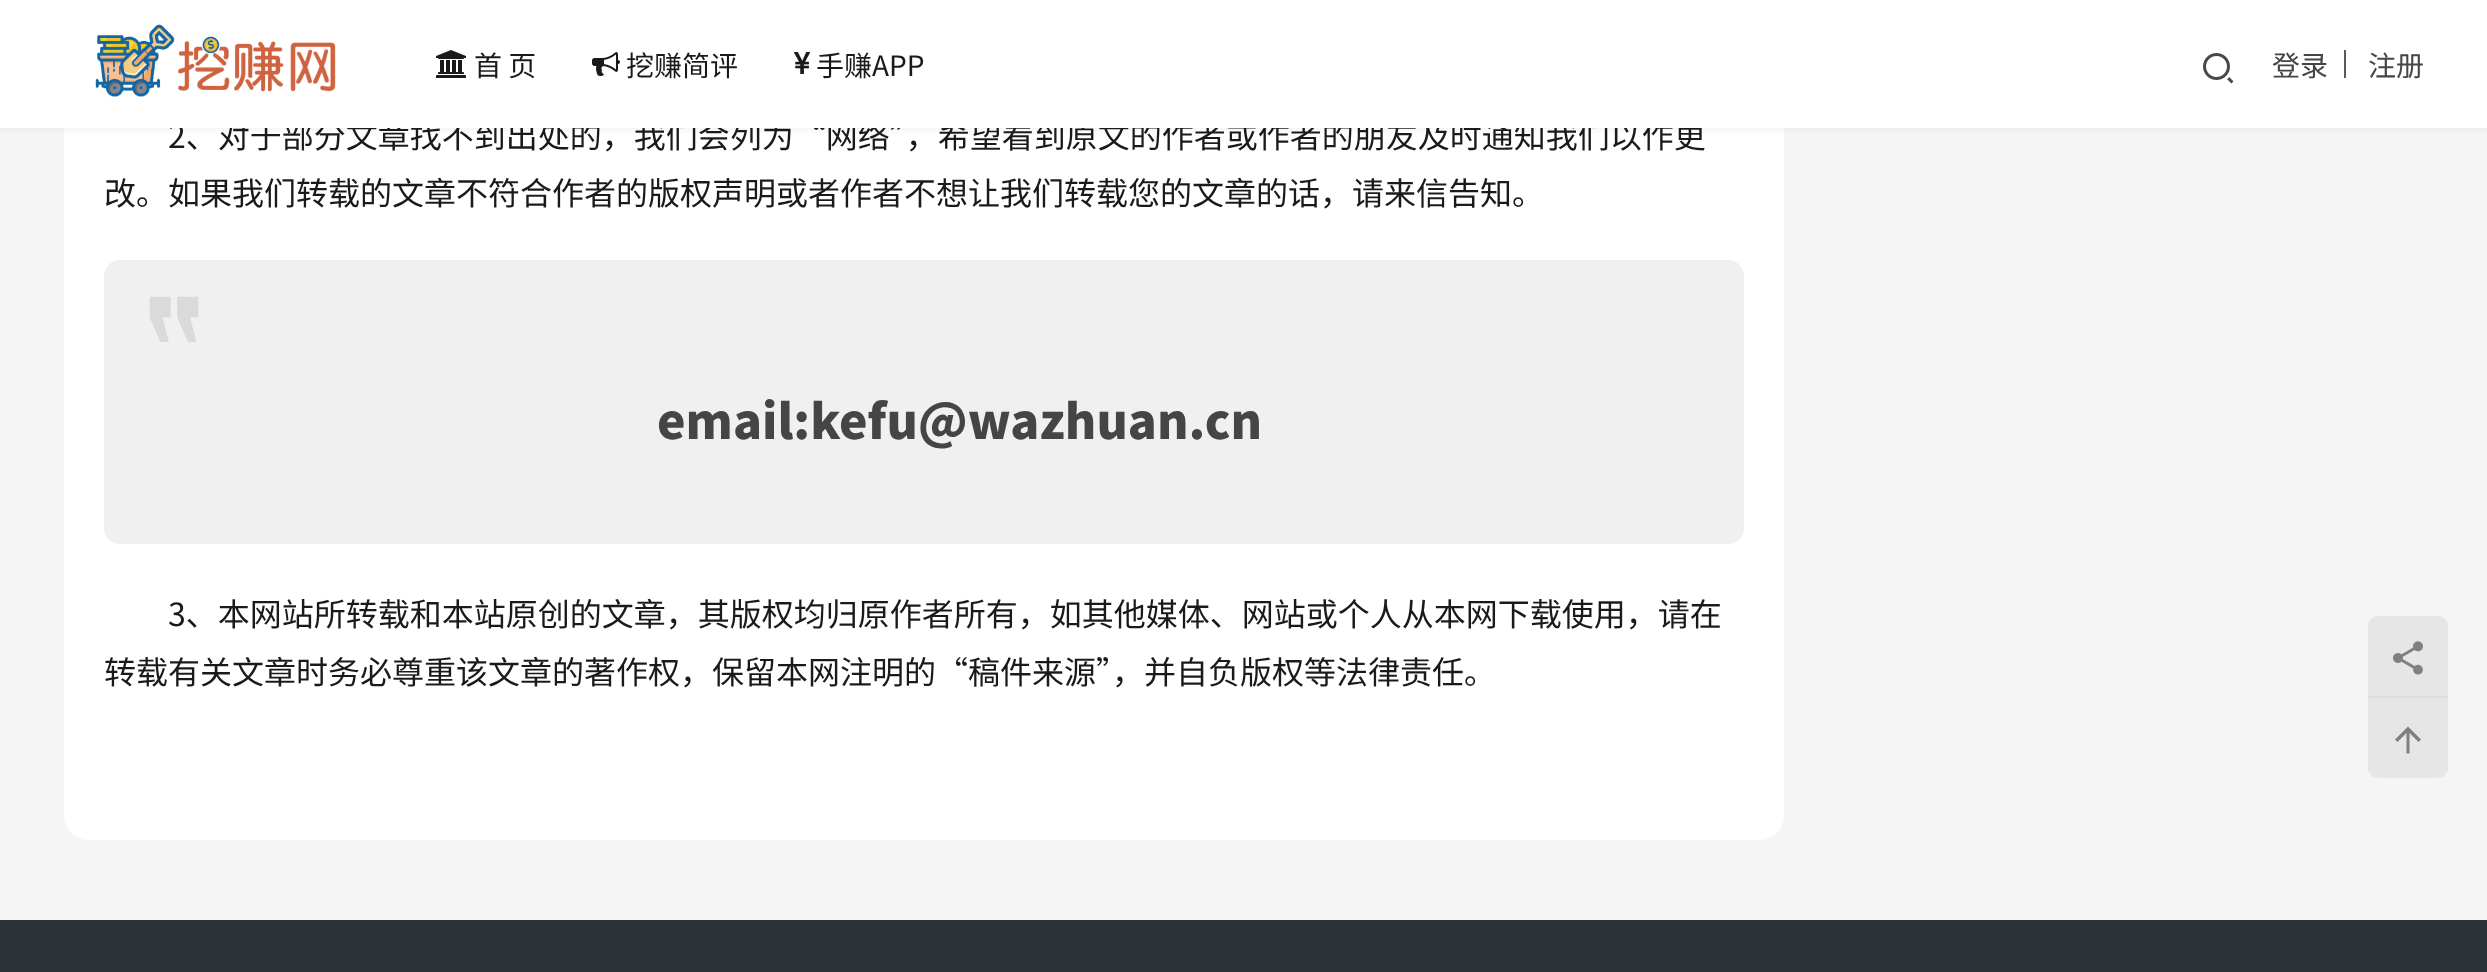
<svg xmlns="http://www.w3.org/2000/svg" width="2487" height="972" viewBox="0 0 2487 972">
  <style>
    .t1 { font: 32px Noto Sans CJK SC; fill: #1a1a1a; }
    .t2 { font: 28px Noto Sans CJK SC; fill: #1a1a1a; }
    .t3 { font: 28px Noto Sans CJK SC; fill: #454545; }
    .t4 { font: 900 48px Noto Sans CJK SC; fill: #454545; }
  </style>
  <rect width="100%" height="100%" fill="#f5f5f5"/>
  <rect x="64" y="-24" width="1720" height="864" rx="24" fill="#fff"/>
  <rect x="-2" y="-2" width="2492" height="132" fill="#1a1a1a0f" filter="blur(3px)"/>
  <text x="168" y="148" class="t1">2、对于部分文章找不到出处的，我们会列为“网络”，希望看到原文的作者或作者的朋友及时通知我们以作更</text>
  <rect x="0" y="0" width="2487" height="128" fill="#fff"/>
  <image x="95" y="24" width="241" height="73" href="images/1.png"/>
  <image x="436" y="50" width="30" height="28" href="images/2.png"/>
  <text x="474" y="76" class="t2">首 页</text>
  <image x="592" y="52" width="28" height="24" href="images/3.png"/>
  <text x="626" y="76" class="t2">挖赚简评</text>
  <image x="794" y="52" width="16" height="22" href="images/4.png"/>
  <text x="816" y="76" class="t2">手赚APP</text>
  <image x="2203" y="53" width="31" height="31" href="images/5.png"/>
  <text x="2272" y="76" class="t3">登录</text>
  <rect x="2344" y="50" width="2" height="28" fill="#5a5a5a"/>
  <text x="2368" y="76" class="t3">注册</text>
  <text x="104" y="205" class="t1">改。如果我们转载的文章不符合作者的版权声明或者作者不想让我们转载您的文章的话，请来信告知。</text>
  <rect x="104" y="260" width="1640" height="284" rx="16" fill="#f0f0f0"/>
  <image x="149" y="296" width="50" height="46" href="images/6.png"/>
  <text x="657" y="439" class="t4">email:kefu@wazhuan.cn</text>
  <text x="168" y="626" class="t1">3、本网站所转载和本站原创的文章，其版权均归原作者所有，如其他媒体、网站或个人从本网下载使用，请在</text>
  <text x="104" y="684" class="t1">转载有关文章时务必尊重该文章的著作权，保留本网注明的“稿件来源”，并自负版权等法律责任。</text>
  <path d="M2378 616H2438C2443.5 616 2448 620.5 2448 626V696H2368V626C2368 620.5 2372.5 616 2378 616Z" fill="#e6e6e6"/>
  <image x="2393" y="641" width="30" height="34" href="images/7.png"/>
  <rect x="2368" y="696" width="80" height="2" fill="#dfdfdf"/>
  <path d="M2368 698H2448V768C2448 773.5 2443.5 778 2438 778H2378C2372.5 778 2368 773.5 2368 768Z" fill="#e6e6e6"/>
  <path d="M2409.5 733V753.5H2406.5V733L2397.5 742L2395 739.5L2408 726.5L2421 739.5L2418.5 742Z" fill="#808080"/>
  <rect x="0" y="920" width="2487" height="52" fill="#2d3236"/>
</svg>
